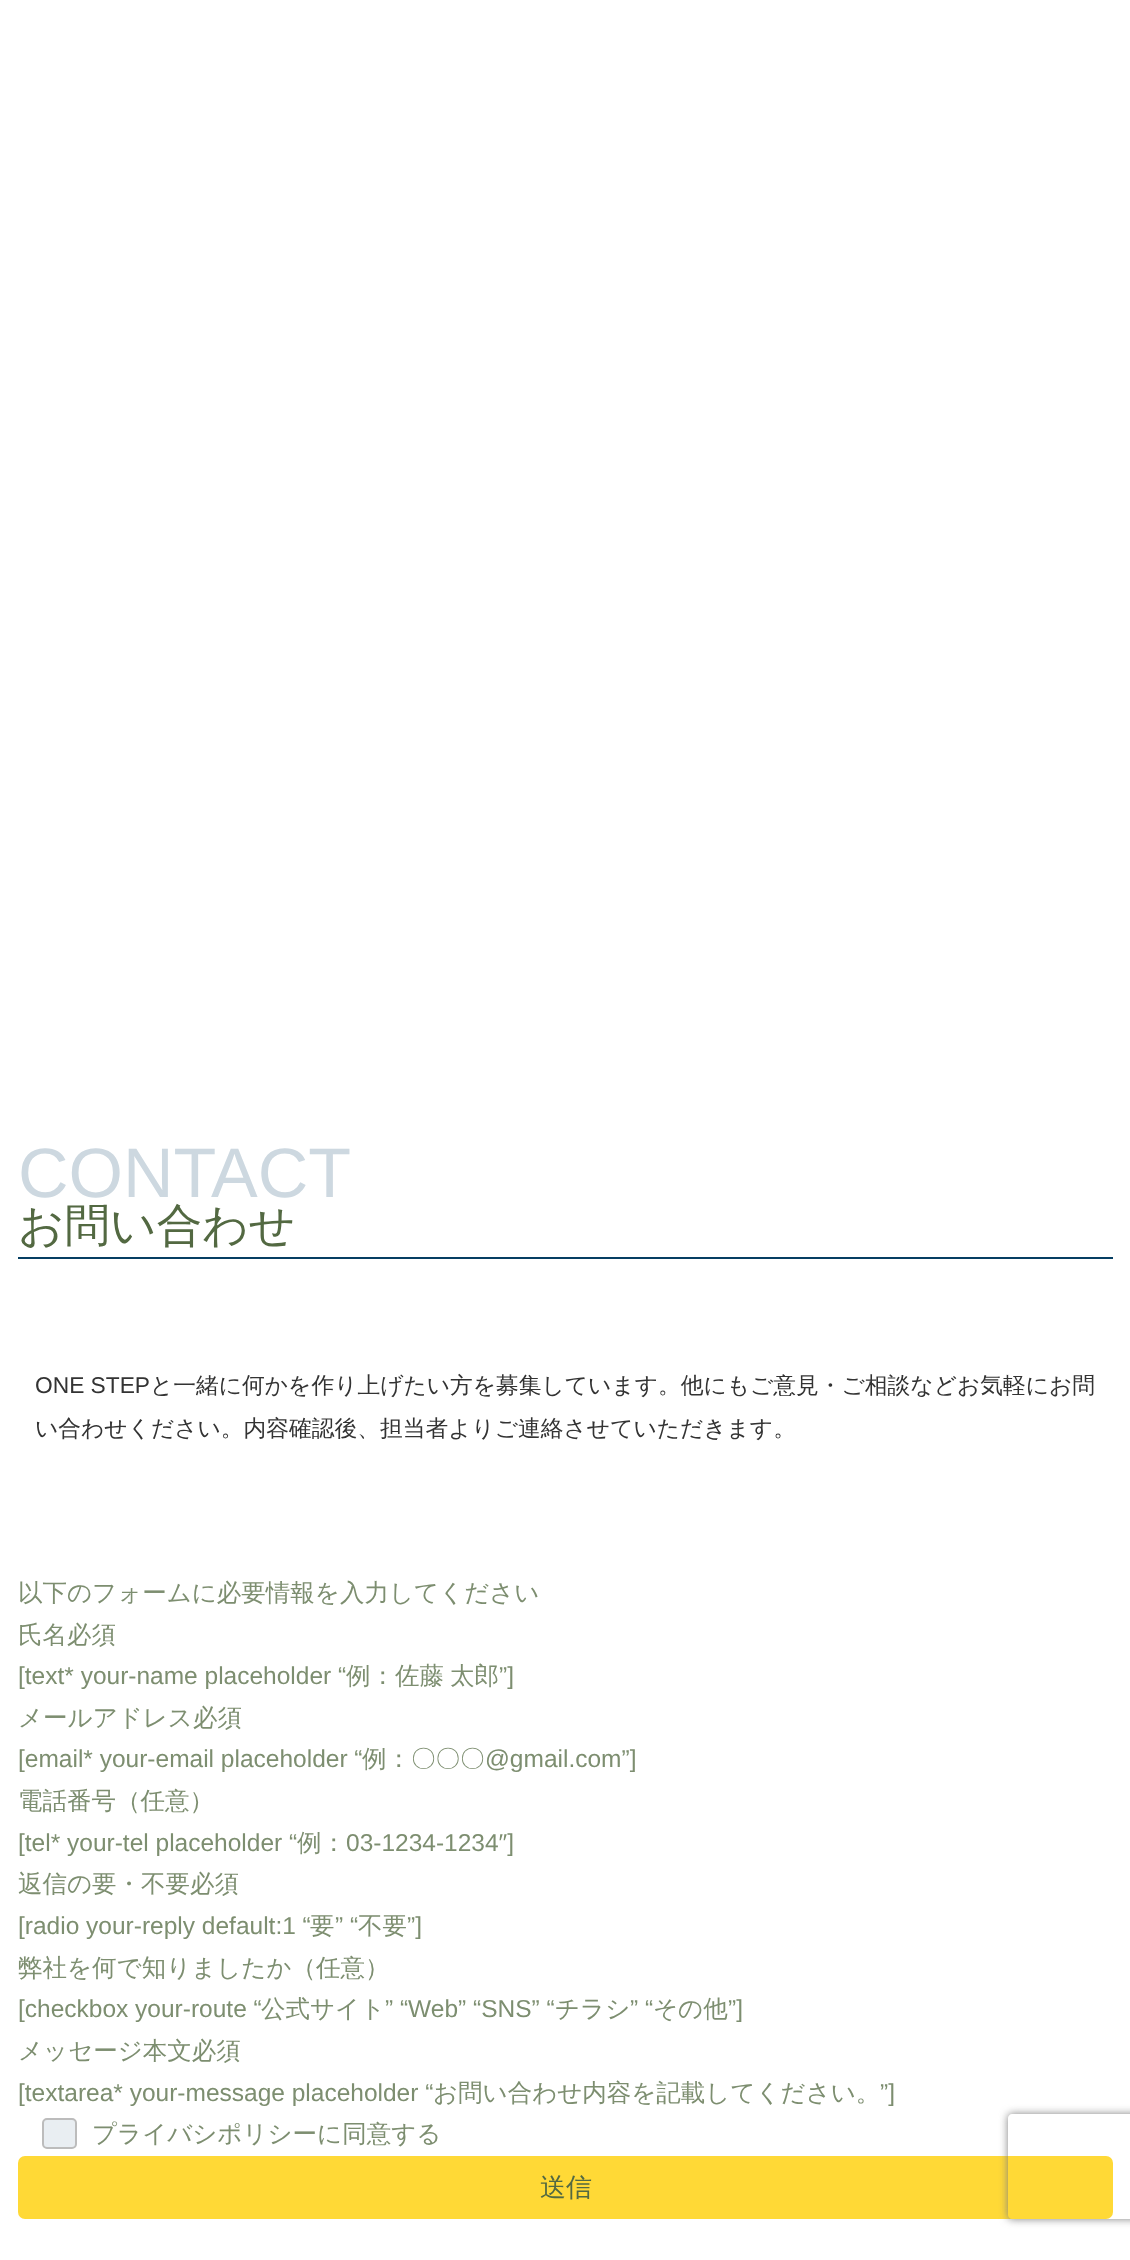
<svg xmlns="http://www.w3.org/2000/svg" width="1130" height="2260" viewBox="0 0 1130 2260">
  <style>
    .t1 { font: 70px Liberation Sans; fill: #cdd8e0; }
    .t2 { font: 500 45.5px WenQuanYi Zen Hei; fill: #536942; }
    .t3 { font: 22.75px Liberation Sans; fill: #333; }
    .t4 { font: 500 22.75px WenQuanYi Zen Hei; fill: #333; }
    .t5 { font: 500 24.5px WenQuanYi Zen Hei; fill: #7d8e70; }
    .t6 { font: 24.5px Liberation Sans; fill: #7d8e70; }
    .t7 { font: 500 26px WenQuanYi Zen Hei; fill: #536942; }
  </style>
  <defs>
    <clipPath id="clip1"><path d="M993 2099H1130V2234H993ZM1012 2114H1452C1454 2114 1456 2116 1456 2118V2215C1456 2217 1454 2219 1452 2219H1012C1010 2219 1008 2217 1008 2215V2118C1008 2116 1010 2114 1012 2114Z" clip-rule="evenodd"/></clipPath>
  </defs>
  <rect width="100%" height="100%" fill="#fff"/>
  <rect x="18" y="1257" width="1095" height="2" fill="#053e62"/>
  <text x="18" y="1197" class="t1">CONTACT</text>
  <text x="18" y="1241" class="t2">お問い合わせ</text>
  <text x="35" y="1393" class="t3">ONE STEP</text>
  <text x="150" y="1393" class="t4">と一緒に何かを作り上げたい方を募集しています。他にもご意見・ご相談などお気軽にお問</text>
  <text x="35" y="1436" class="t4">い合わせください。内容確認後、担当者よりご連絡させていただきます。</text>
  <text x="18" y="1601" class="t5">以下のフォームに必要情報を入力してください</text>
  <text x="18" y="1643" class="t5">氏名必須</text>
  <text x="18" y="1684" class="t6">[text* your-name placeholder “</text>
  <text x="346" y="1684" class="t5">例：佐藤</text>
  <text x="450" y="1684" class="t5">太郎</text>
  <text x="499" y="1684" class="t6">”]</text>
  <text x="18" y="1726" class="t5">メールアドレス必須</text>
  <text x="18" y="1767" class="t6">[email* your-email placeholder “</text>
  <text x="362" y="1767" class="t5">例：〇〇〇</text>
  <text x="485" y="1767" class="t6">@gmail.com”]</text>
  <text x="18" y="1809" class="t5">電話番号（任意）</text>
  <text x="18" y="1851" class="t6">[tel* your-tel placeholder “</text>
  <text x="297" y="1851" class="t5">例：</text>
  <text x="346" y="1851" class="t6">03-1234-1234″]</text>
  <text x="18" y="1892" class="t5">返信の要・不要必須</text>
  <text x="18" y="1934" class="t6">[radio your-reply default:1 “</text>
  <text x="310" y="1934" class="t5">要</text>
  <text x="335" y="1934" class="t6">” “</text>
  <text x="358" y="1934" class="t5">不要</text>
  <text x="407" y="1934" class="t6">”]</text>
  <text x="18" y="1976" class="t5">弊社を何で知りましたか（任意）</text>
  <text x="18" y="2017" class="t6">[checkbox your-route “</text>
  <text x="261" y="2017" class="t5">公式サイト</text>
  <text x="385" y="2017" class="t6">” “Web” “SNS” “</text>
  <text x="555" y="2017" class="t5">チラシ</text>
  <text x="630" y="2017" class="t6">” “</text>
  <text x="653" y="2017" class="t5">その他</text>
  <text x="728" y="2017" class="t6">”]</text>
  <text x="18" y="2059" class="t5">メッセージ本文必須</text>
  <text x="18" y="2101" class="t6">[textarea* your-message placeholder “</text>
  <text x="433" y="2101" class="t5">お問い合わせ内容を記載してください。</text>
  <text x="880" y="2101" class="t6">”]</text>
  <rect x="43" y="2119" width="33" height="29" rx="4" fill="#e9eef2" stroke="#bcbcbc" stroke-width="2"/>
  <text x="92" y="2142" class="t5">プライバシポリシーに同意する</text>
  <rect x="18" y="2156" width="1095" height="63" rx="7" fill="#ffd936"/>
  <text x="540" y="2196" class="t7">送信</text>
  <g clip-path="url(#clip1)">
    <rect x="1008" y="2114" width="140" height="105" rx="4" fill="#808080" filter="blur(4.5px)"/>
  </g>
</svg>
